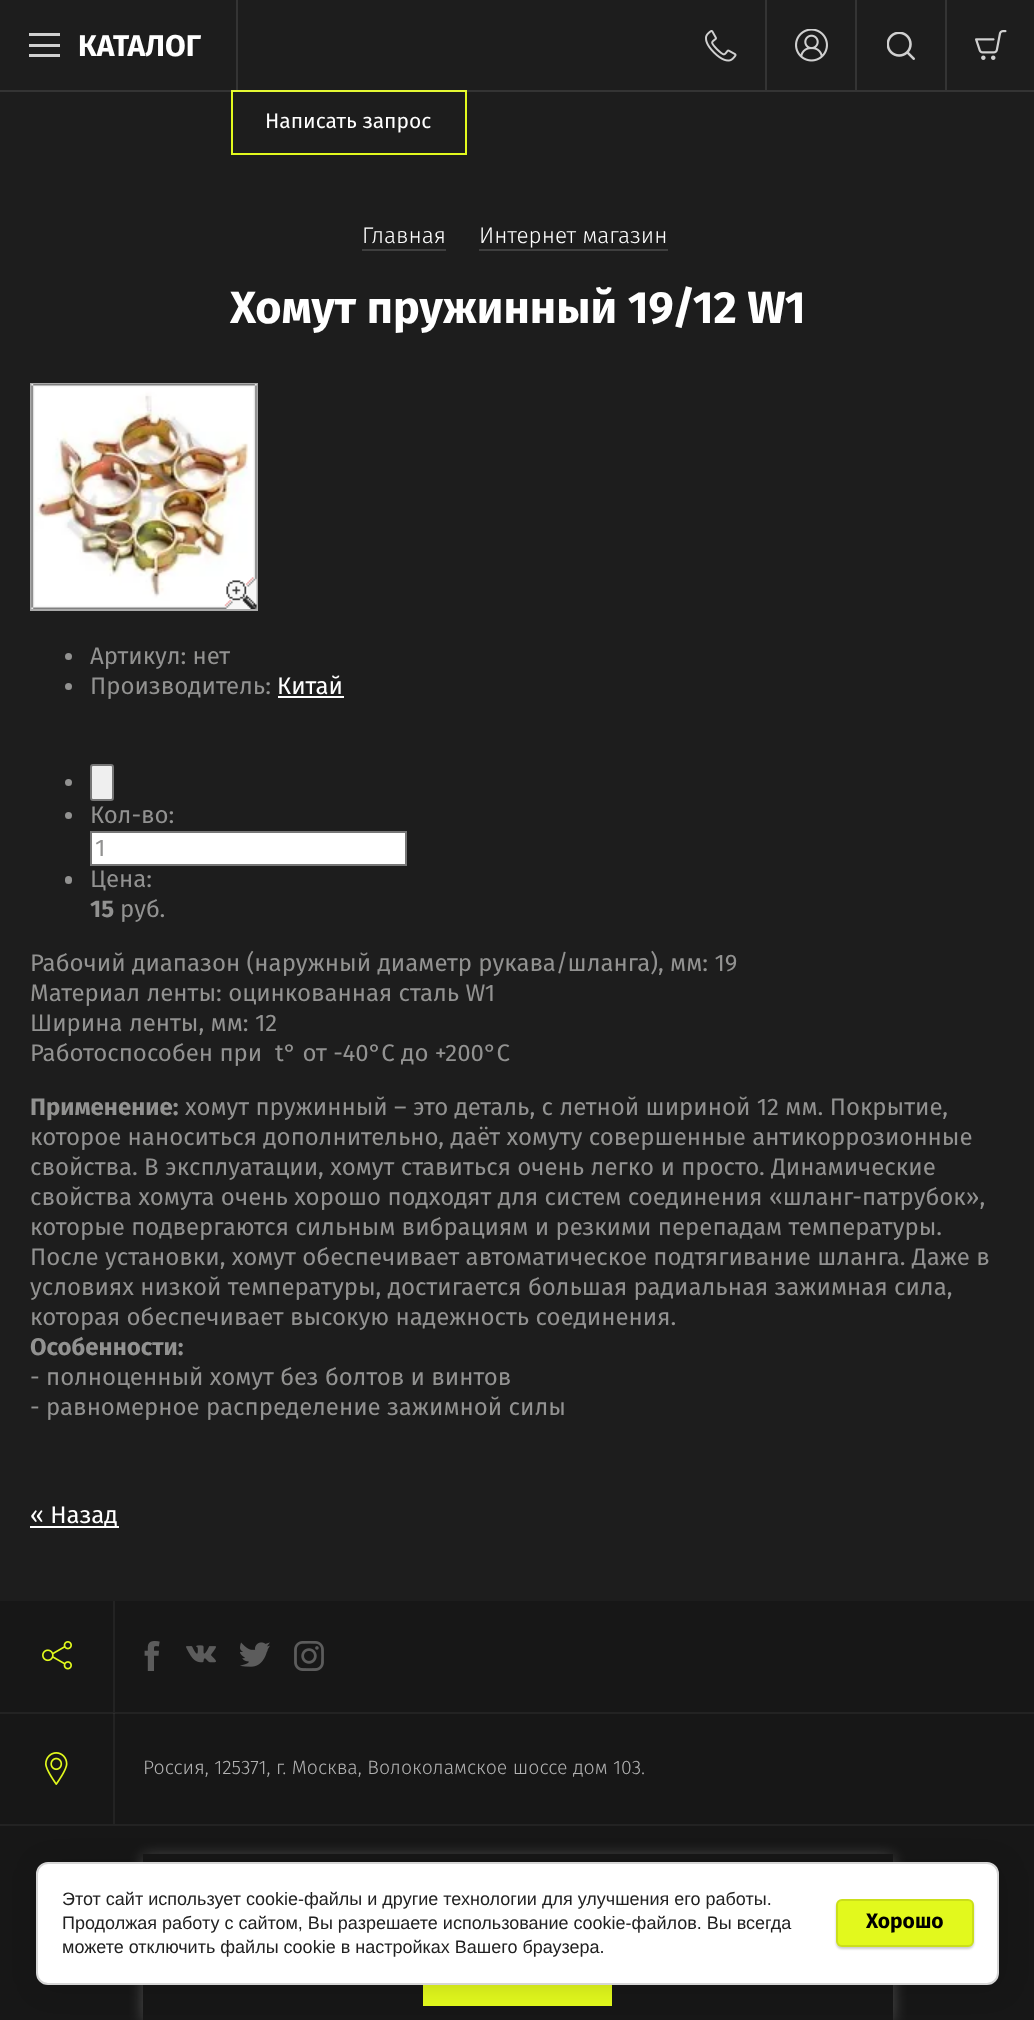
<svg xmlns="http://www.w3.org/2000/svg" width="1034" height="2020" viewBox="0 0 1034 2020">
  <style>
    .t1 { font: bold 30px Fira Sans; fill: #fff; }
    .t2 { font: 21px Fira Sans; fill: #fff; }
    .t3 { font: 300 22.5px Fira Sans; fill: #fff; }
    .t4 { font: bold 45px Fira Sans; fill: #fff; }
    .t5 { font: 24px Fira Sans; fill: #929291; }
    .t6 { font: 24px Fira Sans; fill: #fff; }
    .t7 { font: bold 24px Fira Sans; fill: #929291; }
    .t8 { font: 300 19.5px Fira Sans; fill: #b2b2b2; }
    .t9 { font: 18px Liberation Sans; fill: #212121; }
    .t10 { font: bold 21px Fira Sans; fill: #000; }
  </style>
  <rect width="100%" height="100%" fill="#1d1d1d"/>
  <rect x="232" y="91" width="234" height="63" fill="none" stroke="#e2f91d" stroke-width="2"/>
  <rect x="0" y="90" width="1034" height="2" fill="#ffffff1a"/>
  <rect x="236" y="0" width="2" height="90" fill="#343434"/>
  <rect x="29" y="33" width="31" height="3" fill="#d0d0d0"/>
  <rect x="29" y="44" width="31" height="3" fill="#d0d0d0"/>
  <rect x="29" y="54" width="31" height="3" fill="#d0d0d0"/>
  <text x="78" y="56" class="t1">КАТАЛОГ</text>
  <image x="705" y="30" width="32" height="32" href="images/1.png"/>
  <image x="795" y="29" width="33" height="33" href="images/2.png"/>
  <rect x="765" y="0" width="2" height="90" fill="#343434"/>
  <image x="887" y="32" width="28" height="28" href="images/3.png"/>
  <rect x="855" y="0" width="2" height="90" fill="#343434"/>
  <rect x="945" y="0" width="2" height="90" fill="#343434"/>
  <image x="975" y="30" width="32" height="30" href="images/4.png"/>
  <text x="265" y="128" class="t2">Написать запрос</text>
  <text x="362" y="243" class="t3">Главная</text>
  <rect x="362" y="249" width="84" height="2" fill="#3f3f3f"/>
  <text x="479" y="243" class="t3">Интернет магазин</text>
  <rect x="479" y="249" width="189" height="2" fill="#3f3f3f"/>
  <text x="230" y="323" class="t4">Хомут пружинный 19/12 W1</text>
  <image x="34" y="386" width="220" height="221" href="images/6.png"/>
  <rect x="31" y="384" width="226" height="226" fill="none" stroke="#aaa" stroke-width="2"/>
  <image x="31" y="384" width="226" height="225" href="images/5.png"/>
  <circle cx="68.5" cy="656.5" r="3.5" fill="#929291"/>
  <text x="90" y="664" class="t5">Артикул: нет</text>
  <circle cx="68.5" cy="686.5" r="3.5" fill="#929291"/>
  <text x="90" y="694" class="t5">Производитель:</text>
  <text x="277" y="694" class="t6">Китай</text>
  <rect x="278" y="696" width="66" height="2" fill="#fff"/>
  <circle cx="68.5" cy="782.5" r="3.5" fill="#929291"/>
  <rect x="91" y="765" width="22" height="35" rx="2" fill="#efefef" stroke="#767676" stroke-width="2"/>
  <circle cx="68.5" cy="815.5" r="3.5" fill="#929291"/>
  <text x="90" y="823" class="t5">Кол-во:</text>
  <rect x="91" y="832" width="315" height="33" fill="#fff" stroke="#767676" stroke-width="2"/>
  <text x="95" y="856" class="t5">1</text>
  <rect x="65" y="876" width="7" height="8" rx="3.5" fill="#929291"/>
  <text x="90" y="887" class="t5">Цена:</text>
  <text x="90" y="917" class="t7">15</text>
  <text x="120" y="917" class="t5">руб.</text>
  <text x="30" y="971" class="t5">Рабочий диапазон (наружный диаметр рукава/шланга), мм: 19</text>
  <text x="30" y="1001" class="t5">Материал ленты: оцинкованная сталь W1</text>
  <text x="30" y="1031" class="t5">Ширина ленты, мм: 12</text>
  <text x="30" y="1061" class="t5" xml:space="preserve">Работоспособен при  t° от -40°C до +200°C</text>
  <text x="30" y="1115" class="t7">Применение:</text>
  <text x="185" y="1115" class="t5">хомут пружинный – это деталь, с летной шириной 12 мм. Покрытие,</text>
  <text x="30" y="1145" class="t5">которое наноситься дополнительно, даёт хомуту совершенные антикоррозионные</text>
  <text x="30" y="1175" class="t5">свойства. В эксплуатации, хомут ставиться очень легко и просто. Динамические</text>
  <text x="30" y="1205" class="t5">свойства хомута очень хорошо подходят для систем соединения «шланг-патрубок»,</text>
  <text x="30" y="1235" class="t5">которые подвергаются сильным вибрациям и резкими перепадам температуры.</text>
  <text x="30" y="1265" class="t5">После установки, хомут обеспечивает автоматическое подтягивание шланга. Даже в</text>
  <text x="30" y="1295" class="t5">условиях низкой температуры, достигается большая радиальная зажимная сила,</text>
  <text x="30" y="1325" class="t5">которая обеспечивает высокую надежность соединения.</text>
  <text x="30" y="1355" class="t7">Особенности:</text>
  <text x="30" y="1385" class="t5">- полноценный хомут без болтов и винтов</text>
  <text x="30" y="1415" class="t5">- равномерное распределение зажимной силы</text>
  <rect x="30" y="1526" width="89" height="2" fill="#fff"/>
  <text x="30" y="1523" class="t6">« Назад</text>
  <rect x="0" y="1601" width="1034" height="419" fill="#171717"/>
  <rect x="113" y="1713" width="2" height="111" fill="#232323"/>
  <rect x="0" y="1824" width="1034" height="2" fill="#232323"/>
  <rect x="0" y="1712" width="1034" height="2" fill="#232323"/>
  <rect x="113" y="1713" width="2" height="1" fill="#2e2e2e"/>
  <image x="42" y="1641" width="30" height="29" href="images/7.png"/>
  <rect x="113" y="1601" width="2" height="111" fill="#232323"/>
  <image x="144" y="1641" width="16" height="30" href="images/8.png"/>
  <image x="186" y="1645" width="30" height="18" href="images/9.png"/>
  <image x="240" y="1642" width="30" height="25" href="images/10.png"/>
  <image x="294" y="1641" width="30" height="30" href="images/11.png"/>
  <image x="45" y="1752" width="23" height="33" href="images/12.png"/>
  <text x="143" y="1774" class="t8">Россия, 125371, г. Москва, Волоколамское шоссе дом 103.</text>
  <rect x="143" y="1856" width="750" height="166" fill="#ffffff40" filter="blur(7.5px)"/>
  <rect x="143" y="1854" width="750" height="166" fill="#171717"/>
  <rect x="423" y="1985" width="189" height="21" fill="#e2f91d"/>
  <rect x="39" y="1865" width="963" height="123" rx="12" fill="#00000024" filter="blur(13.5px)"/>
  <rect x="37" y="1863" width="961" height="121" rx="11" fill="#fff" stroke="#d6d6d6" stroke-width="2"/>
  <text x="62" y="1905" class="t9">Этот сайт использует cookie-файлы и другие технологии для улучшения его работы.</text>
  <text x="62" y="1929" class="t9">Продолжая работу с сайтом, Вы разрешаете использование cookie-файлов. Вы всегда</text>
  <text x="62" y="1953" class="t9">можете отключить файлы cookie в настройках Вашего браузера.</text>
  <rect x="836" y="1901" width="138" height="48" rx="6" fill="#00000033" filter="blur(1px)"/>
  <rect x="836" y="1899" width="138" height="48" rx="6" fill="#e2f91d"/>
  <rect x="837" y="1900" width="136" height="46" rx="5" fill="none" stroke="#0000001a" stroke-width="2"/>
  <text x="866" y="1928" class="t10">Хорошо</text>
</svg>
